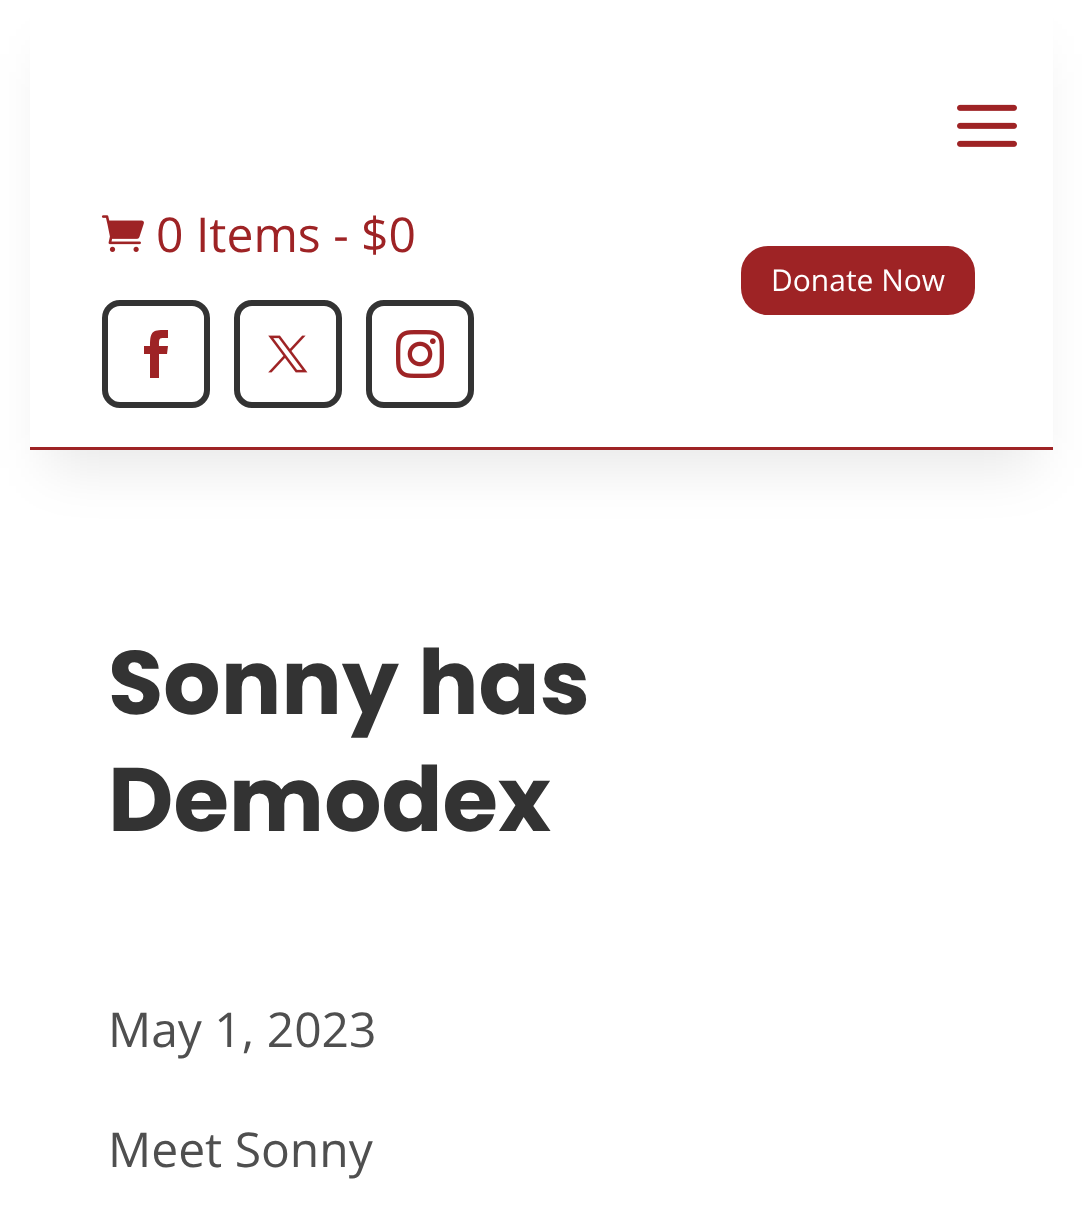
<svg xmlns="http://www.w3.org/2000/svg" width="1082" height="1205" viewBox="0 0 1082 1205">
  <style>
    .t1 { font: 48px Open Sans; fill: #9e2325; }
    .t2 { font: 30px Open Sans; fill: #fff; }
    .t3 { font: bold 90px Poppins; fill: #333; }
    .t4 { font: 48px Open Sans; fill: #4f4f4f; }
  </style>
  <defs>
    <clipPath id="clip1"><path d="M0 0H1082V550H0ZM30 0H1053V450H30Z" clip-rule="evenodd"/></clipPath>
  </defs>
  <rect width="100%" height="100%" fill="#fff"/>
  <g clip-path="url(#clip1)">
    <rect x="48" y="54" width="987" height="414" fill="#00000017" filter="blur(27px)"/>
  </g>
  <image x="957" y="104" width="60" height="43" href="images/1.png"/>
  <rect x="30" y="447" width="1023" height="3" fill="#9e2325"/>
  <image x="101" y="215" width="43" height="37" href="images/2.png"/>
  <text x="156" y="252" class="t1">0 Items - $0</text>
  <rect x="105" y="303" width="102" height="102" rx="15" fill="none" stroke="#333" stroke-width="6"/>
  <path d="M150 378H159V354H167L168 346H159C159 337 159 338 168 338V330C153 330 150 330 150 346H144V354H150Z" fill="#9e2325"/>
  <rect x="237" y="303" width="102" height="102" rx="15" fill="none" stroke="#333" stroke-width="6"/>
  <image x="268" y="335" width="40" height="38" href="images/3.png"/>
  <rect x="369" y="303" width="102" height="102" rx="15" fill="none" stroke="#333" stroke-width="6"/>
  <image x="396" y="330" width="48" height="48" href="images/4.png"/>
  <rect x="738" y="243" width="240" height="75" rx="30" fill="#9e2325" stroke="#fff" stroke-width="6"/>
  <text x="771" y="291" class="t2">Donate Now</text>
  <text x="108" y="714" class="t3">Sonny has</text>
  <text x="108" y="831" class="t3">Demodex</text>
  <text x="108" y="1047" class="t4">May 1, 2023</text>
  <text x="108" y="1167" class="t4">Meet Sonny</text>
</svg>
